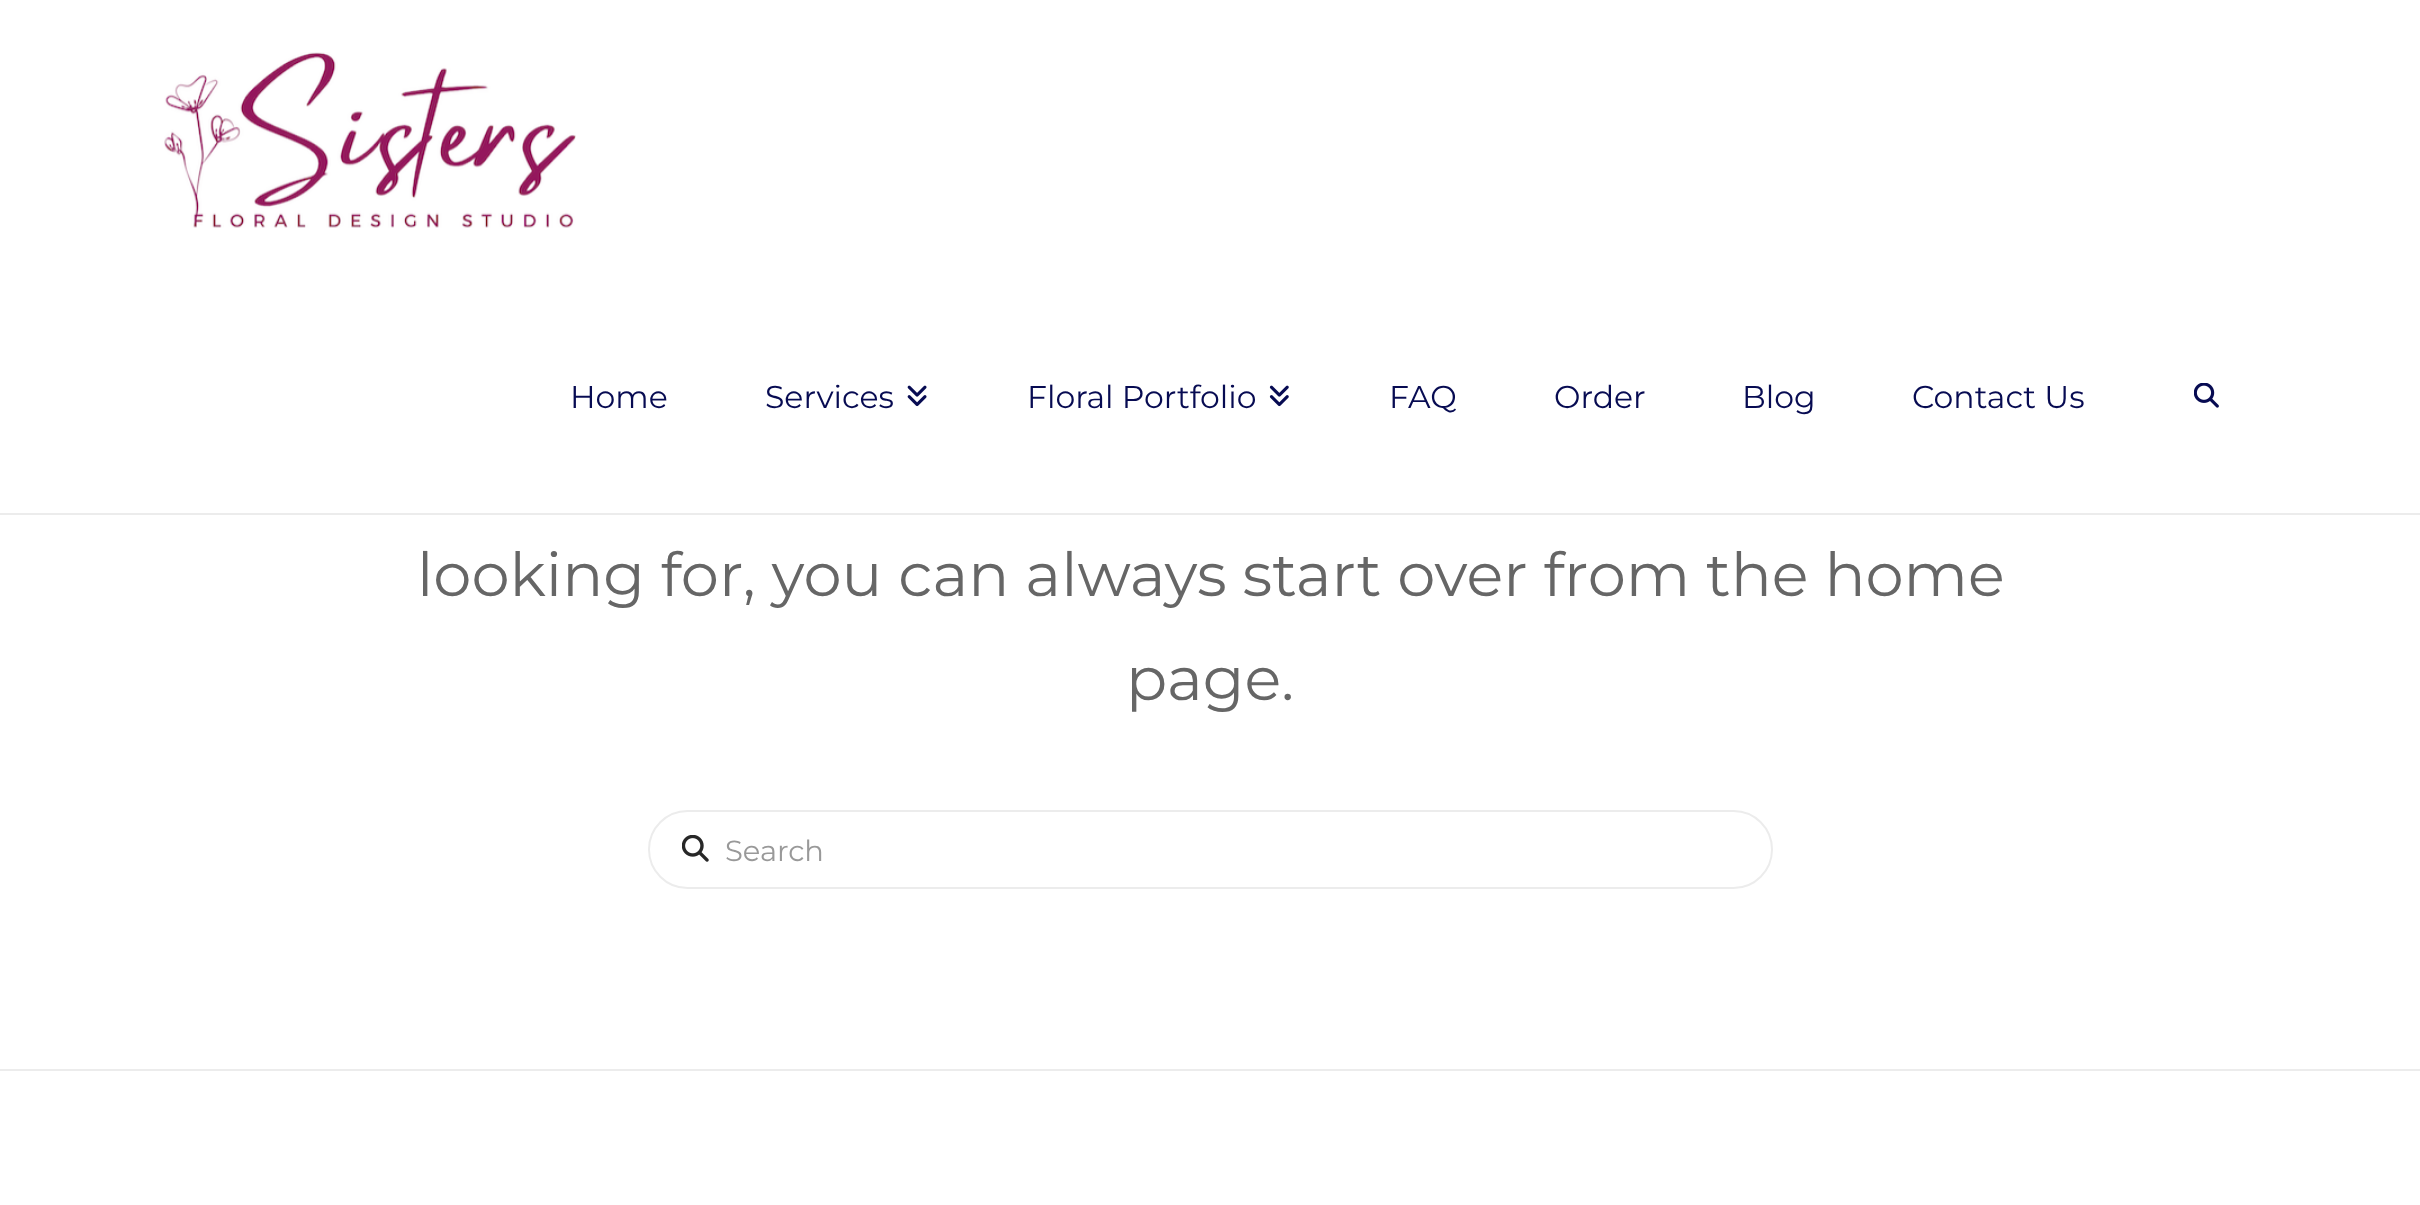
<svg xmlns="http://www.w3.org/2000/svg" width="2420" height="1205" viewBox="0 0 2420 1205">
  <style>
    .t1 { font: 31.5px Montserrat; fill: #070b52; }
    .t2 { font: 60.75px Montserrat; fill: #666; }
    .t3 { font: 29px Montserrat; fill: #999; }
  </style>
  <rect width="100%" height="100%" fill="#fff"/>
  <rect x="0" y="513" width="2420" height="2" fill="#ececec"/>
  <image x="164" y="52" width="412" height="176" href="images/1.png"/>
  <text x="570" y="408" class="t1">Home</text>
  <text x="765" y="408" class="t1">Services</text>
  <image x="907" y="385" width="20" height="22" href="images/2.png"/>
  <text x="1027" y="408" class="t1">Floral Portfolio</text>
  <image x="1269" y="385" width="20" height="22" href="images/3.png"/>
  <text x="1389" y="408" class="t1">FAQ</text>
  <text x="1554" y="408" class="t1">Order</text>
  <text x="1742" y="408" class="t1">Blog</text>
  <text x="1912" y="408" class="t1">Contact Us</text>
  <image x="2194" y="383" width="25" height="25" href="images/4.png"/>
  <text x="417" y="596" class="t2">looking for, you can always start over from the home</text>
  <text x="1126" y="700" class="t2">page.</text>
  <rect x="649" y="811" width="1123" height="77" rx="38.5" fill="none" stroke="#ececec" stroke-width="2"/>
  <image x="682" y="835" width="27" height="27" href="images/5.png"/>
  <text x="725" y="861" class="t3">Search</text>
  <rect x="0" y="1069" width="2420" height="2" fill="#ececec"/>
</svg>
